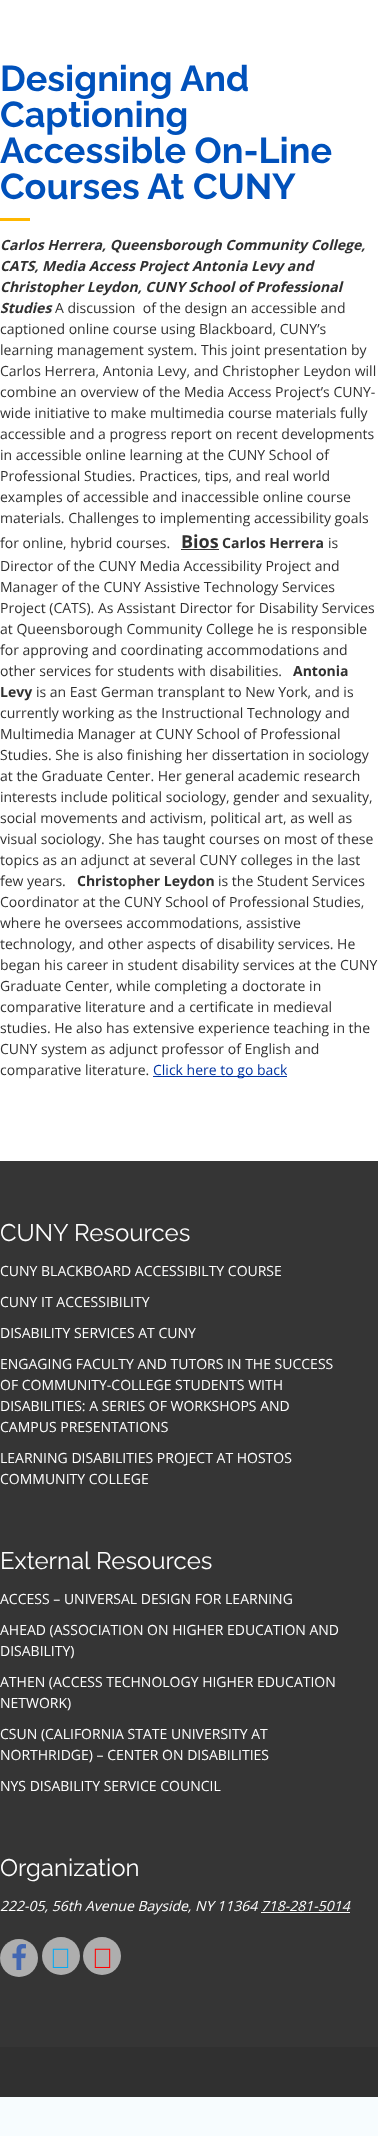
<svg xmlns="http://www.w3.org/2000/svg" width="378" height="2136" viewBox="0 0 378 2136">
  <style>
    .t1 { font: bold 36px Raleway; fill: #0051bb; }
    .t2 { font: italic bold 14px Open Sans; fill: #313131; }
    .t3 { font: 14px Open Sans; fill: #313131; }
    .t4 { font: bold 18px Open Sans; fill: #313131; }
    .t5 { font: bold 14px Open Sans; fill: #313131; }
    .t6 { font: 14px Open Sans; fill: #0033a1; }
    .t7 { font: 24px Raleway; fill: #fff; }
    .t8 { font: 14px Open Sans; fill: #fff; }
    .t9 { font: italic 14px Open Sans; fill: #fff; }
  </style>
  <rect width="100%" height="100%" fill="#f7fcfe"/>
  <rect x="0" y="0" width="378" height="1161" fill="#fff"/>
  <text x="0" y="91" class="t1">Designing And</text>
  <text x="0" y="127" class="t1">Captioning</text>
  <text x="0" y="163" class="t1">Accessible On-Line</text>
  <text x="0" y="199" class="t1">Courses At CUNY</text>
  <rect x="0" y="218" width="30" height="3" fill="#ffb700"/>
  <text x="0" y="250" class="t2">Carlos Herrera, Queensborough Community College,</text>
  <text x="0" y="271" class="t2">CATS, Media Access Project Antonia Levy and</text>
  <text x="0" y="292" class="t2">Christopher Leydon, CUNY School of Professional</text>
  <text x="0" y="313" class="t2">Studies</text>
  <text x="55" y="313" class="t3" xml:space="preserve">A discussion  of the design an accessible and</text>
  <text x="0" y="334" class="t3">captioned online course using Blackboard, CUNY’s</text>
  <text x="0" y="355" class="t3">learning management system. This joint presentation by</text>
  <text x="0" y="376" class="t3">Carlos Herrera, Antonia Levy, and Christopher Leydon will</text>
  <text x="0" y="397" class="t3">combine an overview of the Media Access Project’s CUNY-</text>
  <text x="0" y="418" class="t3">wide initiative to make multimedia course materials fully</text>
  <text x="0" y="439" class="t3">accessible and a progress report on recent developments</text>
  <text x="0" y="460" class="t3">in accessible online learning at the CUNY School of</text>
  <text x="0" y="481" class="t3">Professional Studies. Practices, tips, and real world</text>
  <text x="0" y="502" class="t3">examples of accessible and inaccessible online course</text>
  <text x="0" y="523" class="t3">materials. Challenges to implementing accessibility goals</text>
  <text x="0" y="548" class="t3">for online, hybrid courses.</text>
  <text x="181" y="548" class="t4">Bios</text>
  <rect x="181" y="549" width="38" height="1" fill="#313131"/>
  <text x="222" y="548" class="t5">Carlos Herrera</text>
  <text x="328" y="548" class="t3">is</text>
  <text x="0" y="571" class="t3">Director of the CUNY Media Accessibility Project and</text>
  <text x="0" y="592" class="t3">Manager of the CUNY Assistive Technology Services</text>
  <text x="0" y="613" class="t3">Project (CATS). As Assistant Director for Disability Services</text>
  <text x="0" y="634" class="t3">at Queensborough Community College he is responsible</text>
  <text x="0" y="655" class="t3">for approving and coordinating accommodations and</text>
  <text x="0" y="676" class="t3">other services for students with disabilities.</text>
  <text x="293" y="676" class="t5">Antonia</text>
  <text x="0" y="697" class="t5">Levy</text>
  <text x="36" y="697" class="t3">is an East German transplant to New York, and is</text>
  <text x="0" y="718" class="t3">currently working as the Instructional Technology and</text>
  <text x="0" y="739" class="t3">Multimedia Manager at CUNY School of Professional</text>
  <text x="0" y="760" class="t3">Studies. She is also finishing her dissertation in sociology</text>
  <text x="0" y="781" class="t3">at the Graduate Center. Her general academic research</text>
  <text x="0" y="802" class="t3">interests include political sociology, gender and sexuality,</text>
  <text x="0" y="823" class="t3">social movements and activism, political art, as well as</text>
  <text x="0" y="844" class="t3">visual sociology. She has taught courses on most of these</text>
  <text x="0" y="865" class="t3">topics as an adjunct at several CUNY colleges in the last</text>
  <text x="0" y="886" class="t3">few years.</text>
  <text x="77" y="886" class="t5">Christopher Leydon</text>
  <text x="218" y="886" class="t3">is the Student Services</text>
  <text x="0" y="907" class="t3">Coordinator at the CUNY School of Professional Studies,</text>
  <text x="0" y="928" class="t3">where he oversees accommodations, assistive</text>
  <text x="0" y="949" class="t3">technology, and other aspects of disability services. He</text>
  <text x="0" y="970" class="t3">began his career in student disability services at the CUNY</text>
  <text x="0" y="991" class="t3">Graduate Center, while completing a doctorate in</text>
  <text x="0" y="1012" class="t3">comparative literature and a certificate in medieval</text>
  <text x="0" y="1033" class="t3">studies. He also has extensive experience teaching in the</text>
  <text x="0" y="1054" class="t3">CUNY system as adjunct professor of English and</text>
  <text x="0" y="1075" class="t3">comparative literature.</text>
  <rect x="153" y="1076" width="134" height="1" fill="#0033a1"/>
  <text x="153" y="1075" class="t6">Click here to go back</text>
  <rect x="0" y="1161" width="378" height="886" fill="#353535"/>
  <text x="0" y="1241" class="t7">CUNY Resources</text>
  <text x="0" y="1276" class="t8">CUNY BLACKBOARD ACCESSIBILTY COURSE</text>
  <text x="0" y="1307" class="t8">CUNY IT ACCESSIBILITY</text>
  <text x="0" y="1338" class="t8">DISABILITY SERVICES AT CUNY</text>
  <text x="0" y="1369" class="t8">ENGAGING FACULTY AND TUTORS IN THE SUCCESS</text>
  <text x="0" y="1390" class="t8">OF COMMUNITY-COLLEGE STUDENTS WITH</text>
  <text x="0" y="1411" class="t8">DISABILITIES: A SERIES OF WORKSHOPS AND</text>
  <text x="0" y="1432" class="t8">CAMPUS PRESENTATIONS</text>
  <text x="0" y="1463" class="t8">LEARNING DISABILITIES PROJECT AT HOSTOS</text>
  <text x="0" y="1484" class="t8">COMMUNITY COLLEGE</text>
  <text x="0" y="1569" class="t7">External Resources</text>
  <text x="0" y="1604" class="t8">ACCESS – UNIVERSAL DESIGN FOR LEARNING</text>
  <text x="0" y="1635" class="t8">AHEAD (ASSOCIATION ON HIGHER EDUCATION AND</text>
  <text x="0" y="1656" class="t8">DISABILITY)</text>
  <text x="0" y="1687" class="t8">ATHEN (ACCESS TECHNOLOGY HIGHER EDUCATION</text>
  <text x="0" y="1708" class="t8">NETWORK)</text>
  <text x="0" y="1739" class="t8">CSUN (CALIFORNIA STATE UNIVERSITY AT</text>
  <text x="0" y="1760" class="t8">NORTHRIDGE) – CENTER ON DISABILITIES</text>
  <text x="0" y="1791" class="t8">NYS DISABILITY SERVICE COUNCIL</text>
  <text x="0" y="1876" class="t7">Organization</text>
  <text x="0" y="1911" class="t9">222-05, 56th Avenue Bayside, NY 11364 718-281-5014</text>
  <rect x="261" y="1912" width="89" height="1" fill="#fff"/>
  <circle cx="19" cy="1958" r="19" fill="#aeaeae"/>
  <image x="12" y="1944" width="14" height="26" href="images/1.png"/>
  <circle cx="61" cy="1956" r="19" fill="#aeaeae"/>
  <image x="52" y="1948" width="17" height="20" href="images/2.png"/>
  <circle cx="102" cy="1956" r="19" fill="#aeaeae"/>
  <image x="94" y="1948" width="17" height="20" href="images/3.png"/>
  <rect x="0" y="2047" width="378" height="50" fill="#303030"/>
</svg>
